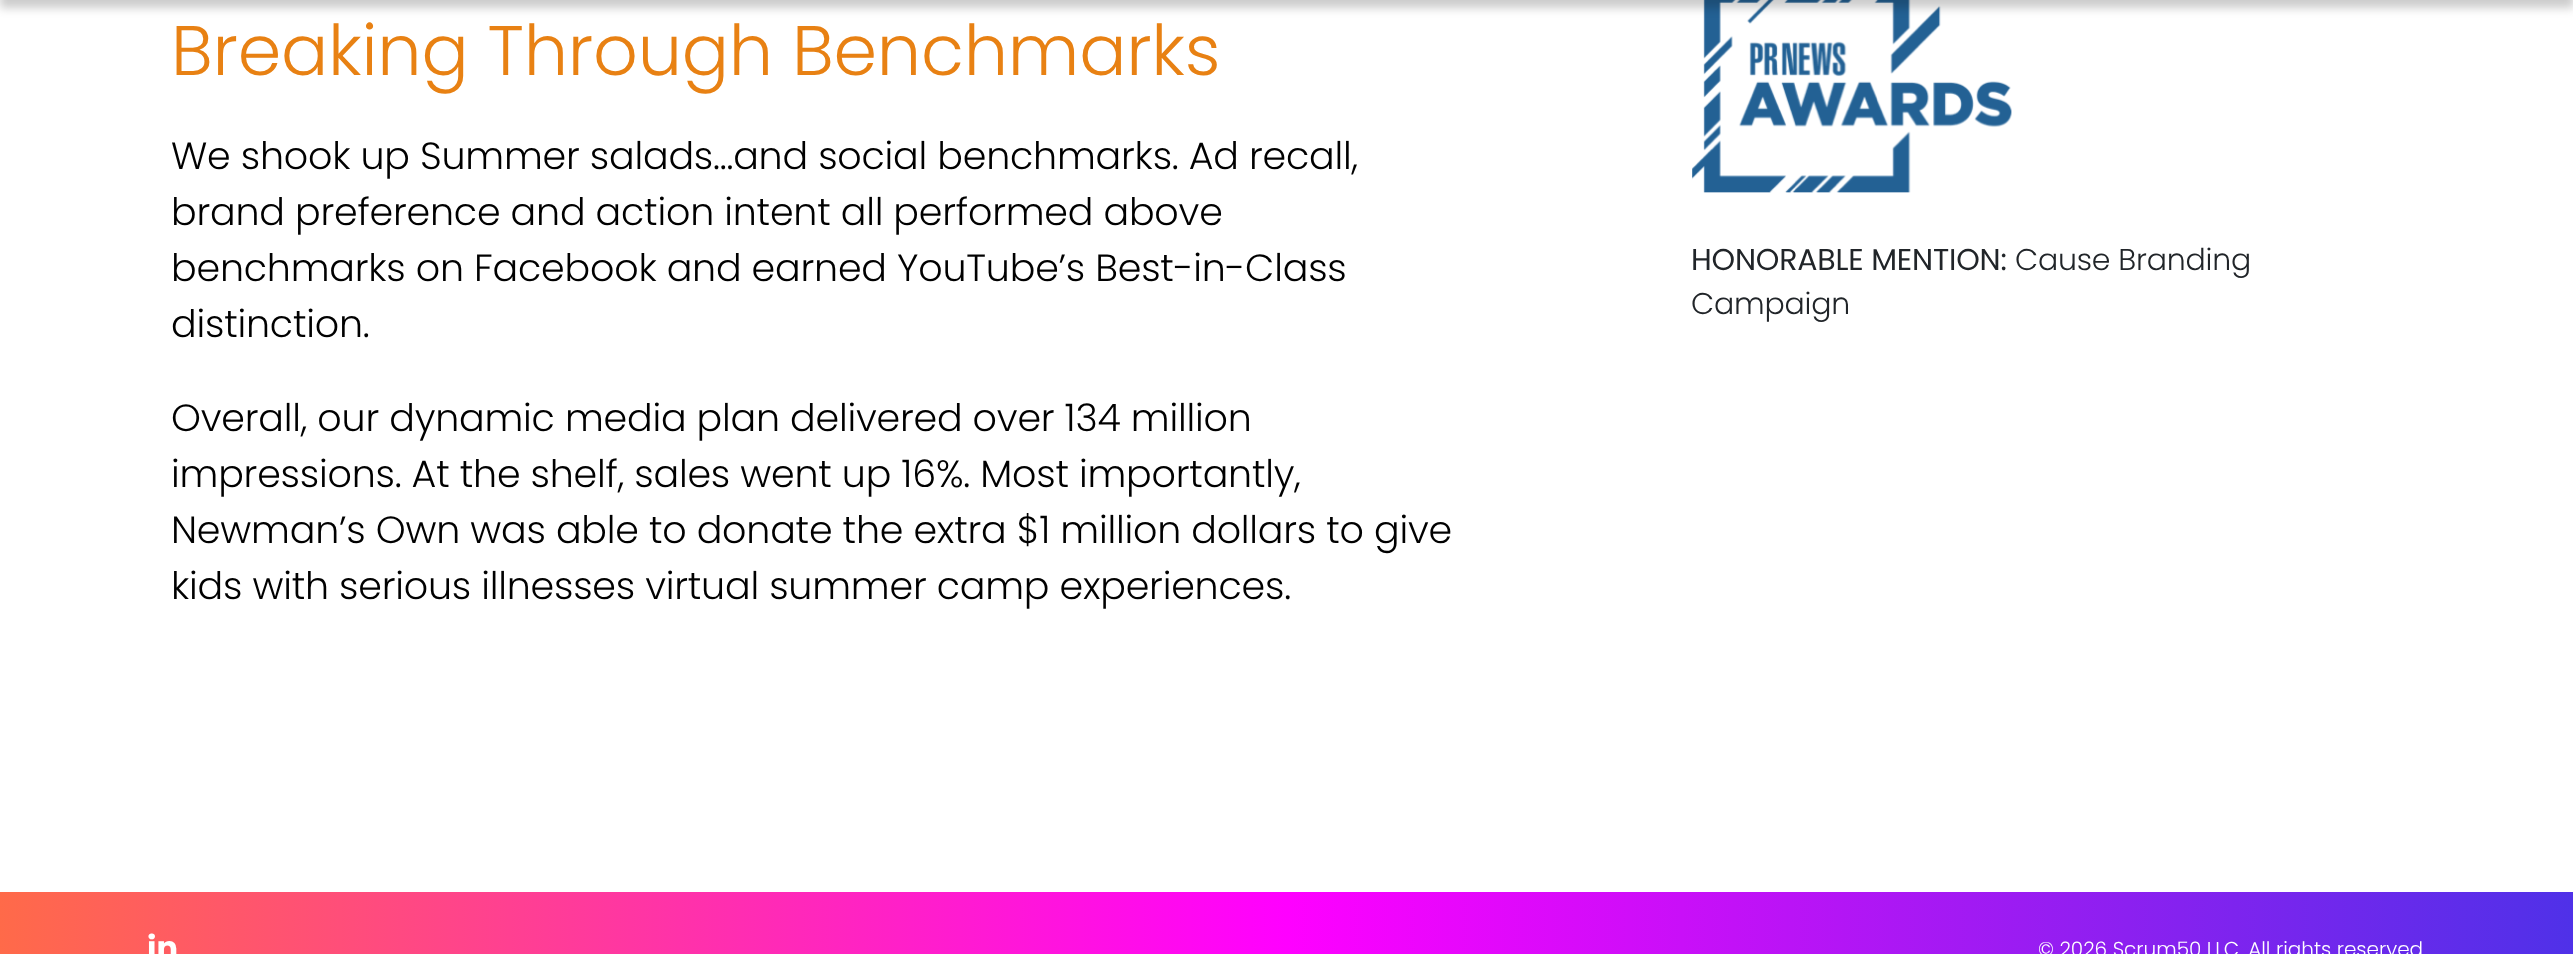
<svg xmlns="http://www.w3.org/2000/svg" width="2573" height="954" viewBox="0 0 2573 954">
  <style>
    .t1 { font: 300 70px Poppins; letter-spacing: -0.2px; fill: #e88113; }
    .t2 { font: 300 38px Poppins; letter-spacing: -0.2px; fill: #000; }
    .t3 { font: 30px Poppins; letter-spacing: -0.2px; fill: #212529; }
    .t4 { font: 300 30px Poppins; letter-spacing: -0.2px; fill: #212529; }
    .t5 { font: bold 32px Poppins; fill: #fff; }
    .t6 { font: 300 20px Poppins; fill: #fff; }
  </style>
  <defs>
    <linearGradient id="g1" gradientUnits="userSpaceOnUse" x1="0" y1="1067" x2="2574" y2="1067"><stop offset="0" stop-color="#ff6a49"/><stop offset="0.5" stop-color="#f0f"/><stop offset="1" stop-color="#4f31e8"/></linearGradient>
  </defs>
  <rect width="100%" height="100%" fill="#fff"/>
  <image x="1692" y="0" width="320" height="193" href="images/1.png"/>
  <rect x="0" y="-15" width="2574" height="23" fill="#00000033" filter="blur(5px)"/>
  <text x="171" y="75" class="t1">Breaking Through Benchmarks</text>
  <text x="171" y="169" class="t2">We shook up Summer salads...and social benchmarks. Ad recall,</text>
  <text x="171" y="225" class="t2">brand preference and action intent all performed above</text>
  <text x="171" y="281" class="t2">benchmarks on Facebook and earned YouTube’s Best-in-Class</text>
  <text x="171" y="337" class="t2">distinction.</text>
  <text x="171" y="431" class="t2">Overall, our dynamic media plan delivered over 134 million</text>
  <text x="171" y="487" class="t2">impressions. At the shelf, sales went up 16%. Most importantly,</text>
  <text x="171" y="543" class="t2">Newman’s Own was able to donate the extra $1 million dollars to give</text>
  <text x="171" y="599" class="t2">kids with serious illnesses virtual summer camp experiences.</text>
  <text x="1691" y="270" class="t3">HONORABLE MENTION:</text>
  <text x="2015" y="270" class="t4">Cause Branding</text>
  <text x="1691" y="314" class="t4">Campaign</text>
  <rect x="0" y="892" width="2573" height="62" fill="url(#g1)"/>
  <text x="147" y="959" class="t5">in</text>
  <text x="2038" y="956" class="t6">© 2026 Scrum50 LLC. All rights reserved</text>
</svg>
